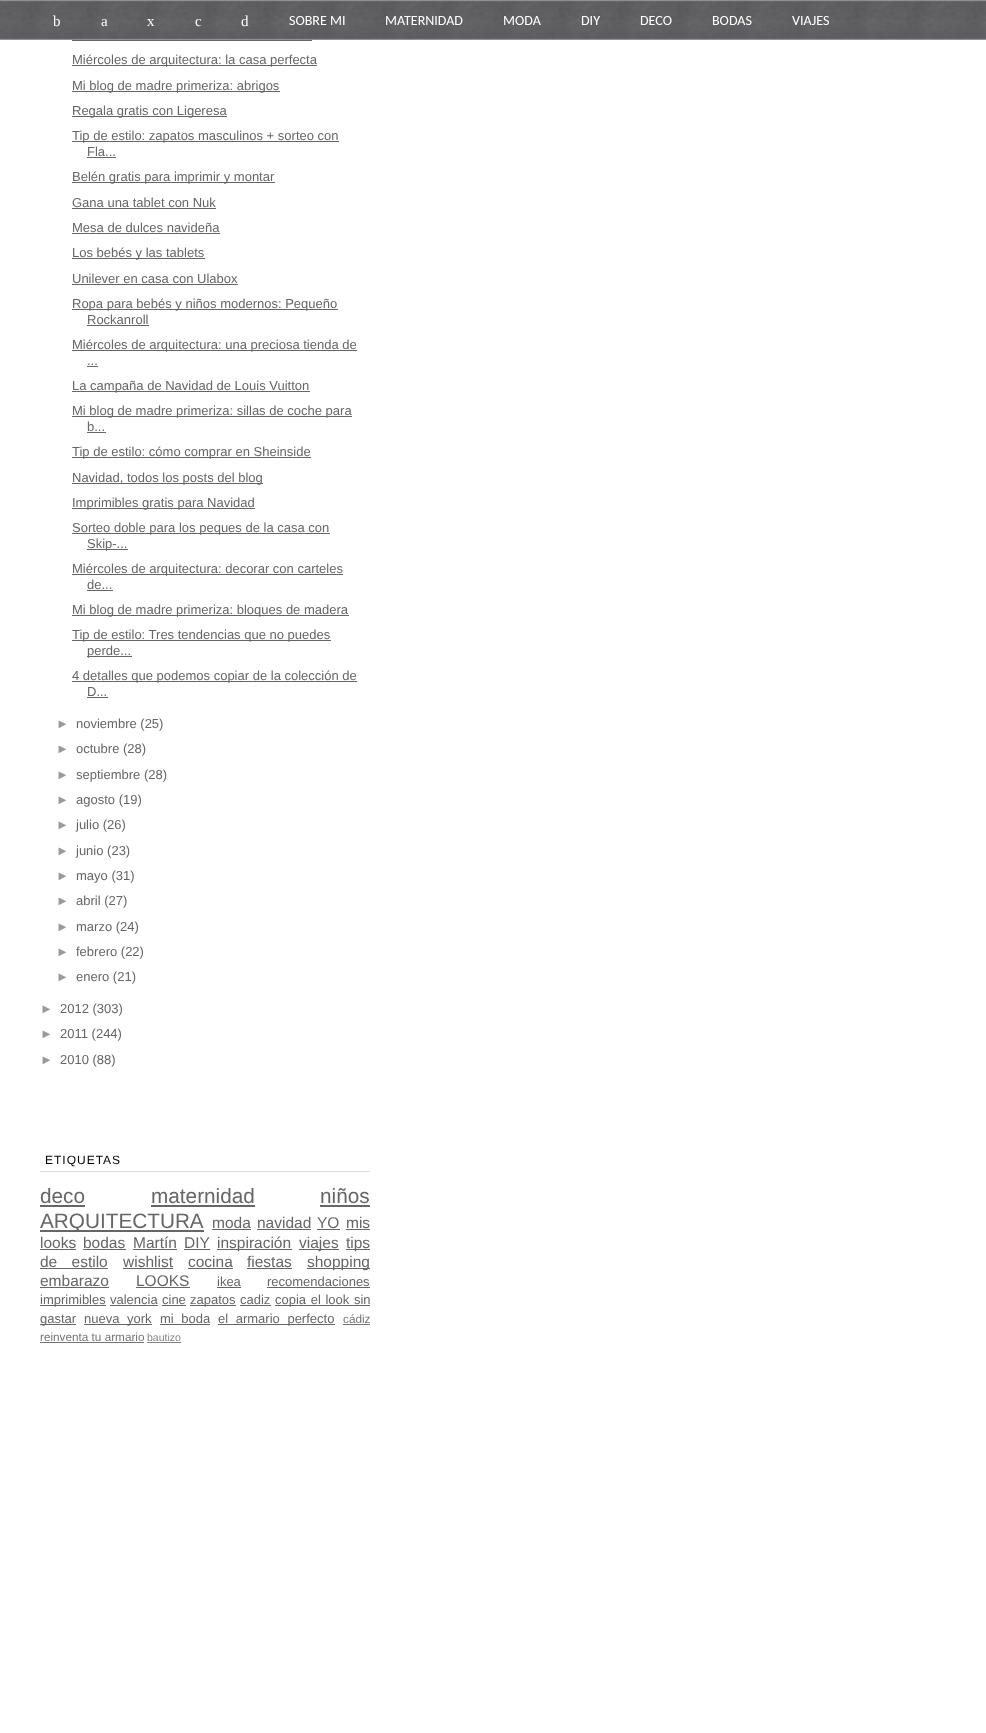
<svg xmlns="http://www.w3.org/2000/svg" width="986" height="1733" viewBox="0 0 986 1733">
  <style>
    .t1 { font: 15px Liberation Serif; fill: #fff; }
    .t2 { font: 14px Carlito; fill: #fff; }
    .t3 { font: 13px Liberation Sans; fill: #666; }
    .t4 { font: 13px Liberation Sans; fill: #999; }
    .t5 { font: 12px Liberation Sans; letter-spacing: 1px; fill: #000; }
    .t6 { font: 20.75px Liberation Sans; fill: #666; }
    .t7 { font: 15.5px Liberation Sans; fill: #666; }
    .t8 { font: 11.75px Liberation Sans; fill: #757575; }
    .t9 { font: 10.5px Liberation Sans; fill: #858585; }
  </style>
  <rect width="100%" height="100%" fill="#fff"/>
  <image x="0" y="0" width="986" height="40" href="images/1.png"/>
  <text x="53" y="26" class="t1">b</text>
  <text x="101" y="26" class="t1">a</text>
  <text x="147" y="26" class="t1">x</text>
  <text x="195" y="26" class="t1">c</text>
  <text x="241" y="26" class="t1">d</text>
  <text x="289" y="25" class="t2">SOBRE MI</text>
  <text x="385" y="25" class="t2">MATERNIDAD</text>
  <text x="503" y="25" class="t2">MODA</text>
  <text x="581" y="25" class="t2">DIY</text>
  <text x="640" y="25" class="t2">DECO</text>
  <text x="712" y="25" class="t2">BODAS</text>
  <text x="792" y="25" class="t2">VIAJES</text>
  <rect x="72" y="40" width="240" height="1" fill="#666"/>
  <rect x="72" y="65" width="245" height="1" fill="#666"/>
  <text x="72" y="64" class="t3">Miércoles de arquitectura: la casa perfecta</text>
  <rect x="72" y="91" width="208" height="1" fill="#666"/>
  <text x="72" y="90" class="t3">Mi blog de madre primeriza: abrigos</text>
  <rect x="72" y="116" width="155" height="1" fill="#666"/>
  <text x="72" y="115" class="t3">Regala gratis con Ligeresa</text>
  <rect x="72" y="141" width="267" height="1" fill="#666"/>
  <text x="72" y="140" class="t3">Tip de estilo: zapatos masculinos + sorteo con</text>
  <text x="87" y="156" class="t3">Fla...</text>
  <rect x="87" y="157" width="29" height="1" fill="#666"/>
  <rect x="72" y="182" width="203" height="1" fill="#666"/>
  <text x="72" y="181" class="t3">Belén gratis para imprimir y montar</text>
  <text x="72" y="207" class="t3">Gana una tablet con Nuk</text>
  <rect x="72" y="208" width="144" height="1" fill="#666"/>
  <text x="72" y="232" class="t3">Mesa de dulces navideña</text>
  <rect x="72" y="233" width="148" height="1" fill="#666"/>
  <rect x="72" y="258" width="133" height="1" fill="#666"/>
  <text x="72" y="257" class="t3">Los bebés y las tablets</text>
  <text x="72" y="283" class="t3">Unilever en casa con Ulabox</text>
  <rect x="72" y="284" width="166" height="1" fill="#666"/>
  <rect x="72" y="309" width="266" height="1" fill="#666"/>
  <text x="72" y="308" class="t3">Ropa para bebés y niños modernos: Pequeño</text>
  <text x="87" y="324" class="t3">Rockanroll</text>
  <rect x="87" y="325" width="62" height="1" fill="#666"/>
  <rect x="72" y="350" width="285" height="1" fill="#666"/>
  <text x="72" y="349" class="t3">Miércoles de arquitectura: una preciosa tienda de</text>
  <text x="87" y="365" class="t3">...</text>
  <rect x="87" y="366" width="11" height="1" fill="#666"/>
  <rect x="72" y="391" width="238" height="1" fill="#666"/>
  <text x="72" y="390" class="t3">La campaña de Navidad de Louis Vuitton</text>
  <rect x="72" y="416" width="280" height="1" fill="#666"/>
  <text x="72" y="415" class="t3">Mi blog de madre primeriza: sillas de coche para</text>
  <text x="87" y="431" class="t3">b...</text>
  <rect x="87" y="432" width="19" height="1" fill="#666"/>
  <rect x="72" y="457" width="239" height="1" fill="#666"/>
  <text x="72" y="456" class="t3">Tip de estilo: cómo comprar en Sheinside</text>
  <rect x="72" y="483" width="191" height="1" fill="#666"/>
  <text x="72" y="482" class="t3">Navidad, todos los posts del blog</text>
  <rect x="72" y="508" width="183" height="1" fill="#666"/>
  <text x="72" y="507" class="t3">Imprimibles gratis para Navidad</text>
  <rect x="72" y="533" width="258" height="1" fill="#666"/>
  <text x="72" y="532" class="t3">Sorteo doble para los peques de la casa con</text>
  <rect x="87" y="549" width="41" height="1" fill="#666"/>
  <text x="87" y="548" class="t3">Skip-...</text>
  <rect x="72" y="574" width="271" height="1" fill="#666"/>
  <text x="72" y="573" class="t3">Miércoles de arquitectura: decorar con carteles</text>
  <text x="87" y="589" class="t3">de...</text>
  <rect x="87" y="590" width="26" height="1" fill="#666"/>
  <rect x="72" y="615" width="277" height="1" fill="#666"/>
  <text x="72" y="614" class="t3">Mi blog de madre primeriza: bloques de madera</text>
  <rect x="72" y="640" width="259" height="1" fill="#666"/>
  <text x="72" y="639" class="t3">Tip de estilo: Tres tendencias que no puedes</text>
  <rect x="87" y="656" width="45" height="1" fill="#666"/>
  <text x="87" y="655" class="t3">perde...</text>
  <rect x="72" y="681" width="285" height="1" fill="#666"/>
  <text x="72" y="680" class="t3">4 detalles que podemos copiar de la colección de</text>
  <text x="87" y="696" class="t3">D...</text>
  <rect x="87" y="697" width="21" height="1" fill="#666"/>
  <text x="56" y="728" class="t4">►</text>
  <text x="76" y="728" class="t3">noviembre (25)</text>
  <text x="56" y="753" class="t4">►</text>
  <text x="76" y="753" class="t3">octubre (28)</text>
  <text x="56" y="779" class="t4">►</text>
  <text x="76" y="779" class="t3">septiembre (28)</text>
  <text x="56" y="804" class="t4">►</text>
  <text x="76" y="804" class="t3">agosto (19)</text>
  <text x="56" y="829" class="t4">►</text>
  <text x="76" y="829" class="t3">julio (26)</text>
  <text x="56" y="855" class="t4">►</text>
  <text x="76" y="855" class="t3">junio (23)</text>
  <text x="56" y="880" class="t4">►</text>
  <text x="76" y="880" class="t3">mayo (31)</text>
  <text x="56" y="905" class="t4">►</text>
  <text x="76" y="905" class="t3">abril (27)</text>
  <text x="56" y="931" class="t4">►</text>
  <text x="76" y="931" class="t3">marzo (24)</text>
  <text x="56" y="956" class="t4">►</text>
  <text x="76" y="956" class="t3">febrero (22)</text>
  <text x="56" y="981" class="t4">►</text>
  <text x="76" y="981" class="t3">enero (21)</text>
  <text x="40" y="1013" class="t4">►</text>
  <text x="60" y="1013" class="t3">2012 (303)</text>
  <text x="40" y="1038" class="t4">►</text>
  <text x="60" y="1038" class="t3">2011 (244)</text>
  <text x="40" y="1064" class="t4">►</text>
  <text x="60" y="1064" class="t3">2010 (88)</text>
  <rect x="40" y="1171" width="330" height="1" fill="#dfdfdf"/>
  <text x="45" y="1164" class="t5">ETIQUETAS</text>
  <text x="40" y="1203" class="t6">deco</text>
  <rect x="40" y="1205" width="45" height="2" fill="#666"/>
  <text x="151" y="1203" class="t6">maternidad</text>
  <rect x="151" y="1205" width="104" height="2" fill="#666"/>
  <text x="320" y="1203" class="t6">niños</text>
  <rect x="320" y="1205" width="50" height="2" fill="#666"/>
  <rect x="40" y="1230" width="164" height="2" fill="#666"/>
  <text x="40" y="1228" class="t6">ARQUITECTURA</text>
  <text x="212" y="1228" class="t7">moda</text>
  <rect x="212" y="1229" width="39" height="1" fill="#666"/>
  <text x="257" y="1228" class="t7">navidad</text>
  <rect x="257" y="1229" width="54" height="1" fill="#666"/>
  <text x="317" y="1228" class="t7">YO</text>
  <rect x="317" y="1229" width="23" height="1" fill="#666"/>
  <text x="346" y="1228" class="t7">mis</text>
  <rect x="346" y="1229" width="24" height="1" fill="#666"/>
  <text x="40" y="1248" class="t7">looks</text>
  <rect x="40" y="1249" width="36" height="1" fill="#666"/>
  <text x="83" y="1248" class="t7">bodas</text>
  <rect x="83" y="1249" width="43" height="1" fill="#666"/>
  <text x="133" y="1248" class="t7">Martín</text>
  <rect x="133" y="1249" width="44" height="1" fill="#666"/>
  <text x="184" y="1248" class="t7">DIY</text>
  <rect x="184" y="1249" width="26" height="1" fill="#666"/>
  <rect x="217" y="1249" width="75" height="1" fill="#666"/>
  <text x="217" y="1248" class="t7">inspiración</text>
  <rect x="299" y="1249" width="40" height="1" fill="#666"/>
  <text x="299" y="1248" class="t7">viajes</text>
  <rect x="346" y="1249" width="24" height="1" fill="#666"/>
  <text x="346" y="1248" class="t7">tips</text>
  <text x="40" y="1267" word-spacing="10" class="t7">de estilo</text>
  <rect x="40" y="1268" width="68" height="1" fill="#666"/>
  <text x="123" y="1267" class="t7">wishlist</text>
  <rect x="123" y="1268" width="50" height="1" fill="#666"/>
  <text x="188" y="1267" class="t7">cocina</text>
  <rect x="188" y="1268" width="45" height="1" fill="#666"/>
  <text x="247" y="1267" class="t7">fiestas</text>
  <rect x="247" y="1268" width="45" height="1" fill="#666"/>
  <rect x="307" y="1268" width="63" height="1" fill="#666"/>
  <text x="307" y="1267" class="t7">shopping</text>
  <text x="40" y="1286" class="t7">embarazo</text>
  <rect x="40" y="1287" width="69" height="1" fill="#666"/>
  <text x="136" y="1286" class="t7">LOOKS</text>
  <rect x="136" y="1287" width="54" height="1" fill="#666"/>
  <text x="217" y="1286" class="t3">ikea</text>
  <rect x="217" y="1287" width="24" height="1" fill="#666"/>
  <text x="267" y="1286" class="t3">recomendaciones</text>
  <rect x="267" y="1287" width="103" height="1" fill="#666"/>
  <rect x="40" y="1305" width="66" height="1" fill="#666"/>
  <text x="40" y="1304" class="t3">imprimibles</text>
  <text x="110" y="1304" class="t3">valencia</text>
  <rect x="110" y="1305" width="48" height="1" fill="#666"/>
  <text x="162" y="1304" class="t3">cine</text>
  <rect x="162" y="1305" width="24" height="1" fill="#666"/>
  <rect x="190" y="1305" width="46" height="1" fill="#666"/>
  <text x="190" y="1304" class="t3">zapatos</text>
  <text x="240" y="1304" class="t3">cadiz</text>
  <rect x="240" y="1305" width="31" height="1" fill="#666"/>
  <rect x="275" y="1305" width="95" height="1" fill="#666"/>
  <text x="275" y="1304" word-spacing="1" class="t3">copia el look sin</text>
  <rect x="40" y="1324" width="36" height="1" fill="#666"/>
  <text x="40" y="1323" class="t3">gastar</text>
  <rect x="84" y="1324" width="68" height="1" fill="#666"/>
  <text x="84" y="1323" word-spacing="4" class="t3">nueva york</text>
  <text x="160" y="1323" word-spacing="4" class="t3">mi boda</text>
  <rect x="160" y="1324" width="50" height="1" fill="#666"/>
  <rect x="218" y="1324" width="117" height="1" fill="#666"/>
  <text x="218" y="1323" word-spacing="4" class="t3">el armario perfecto</text>
  <text x="343" y="1323" class="t8">cádiz</text>
  <rect x="343" y="1324" width="27" height="1" fill="#757575"/>
  <text x="40" y="1341" class="t8">reinventa tu armario</text>
  <rect x="40" y="1342" width="104" height="1" fill="#757575"/>
  <text x="147" y="1341" class="t9">bautizo</text>
  <rect x="147" y="1342" width="34" height="1" fill="#858585"/>
</svg>
